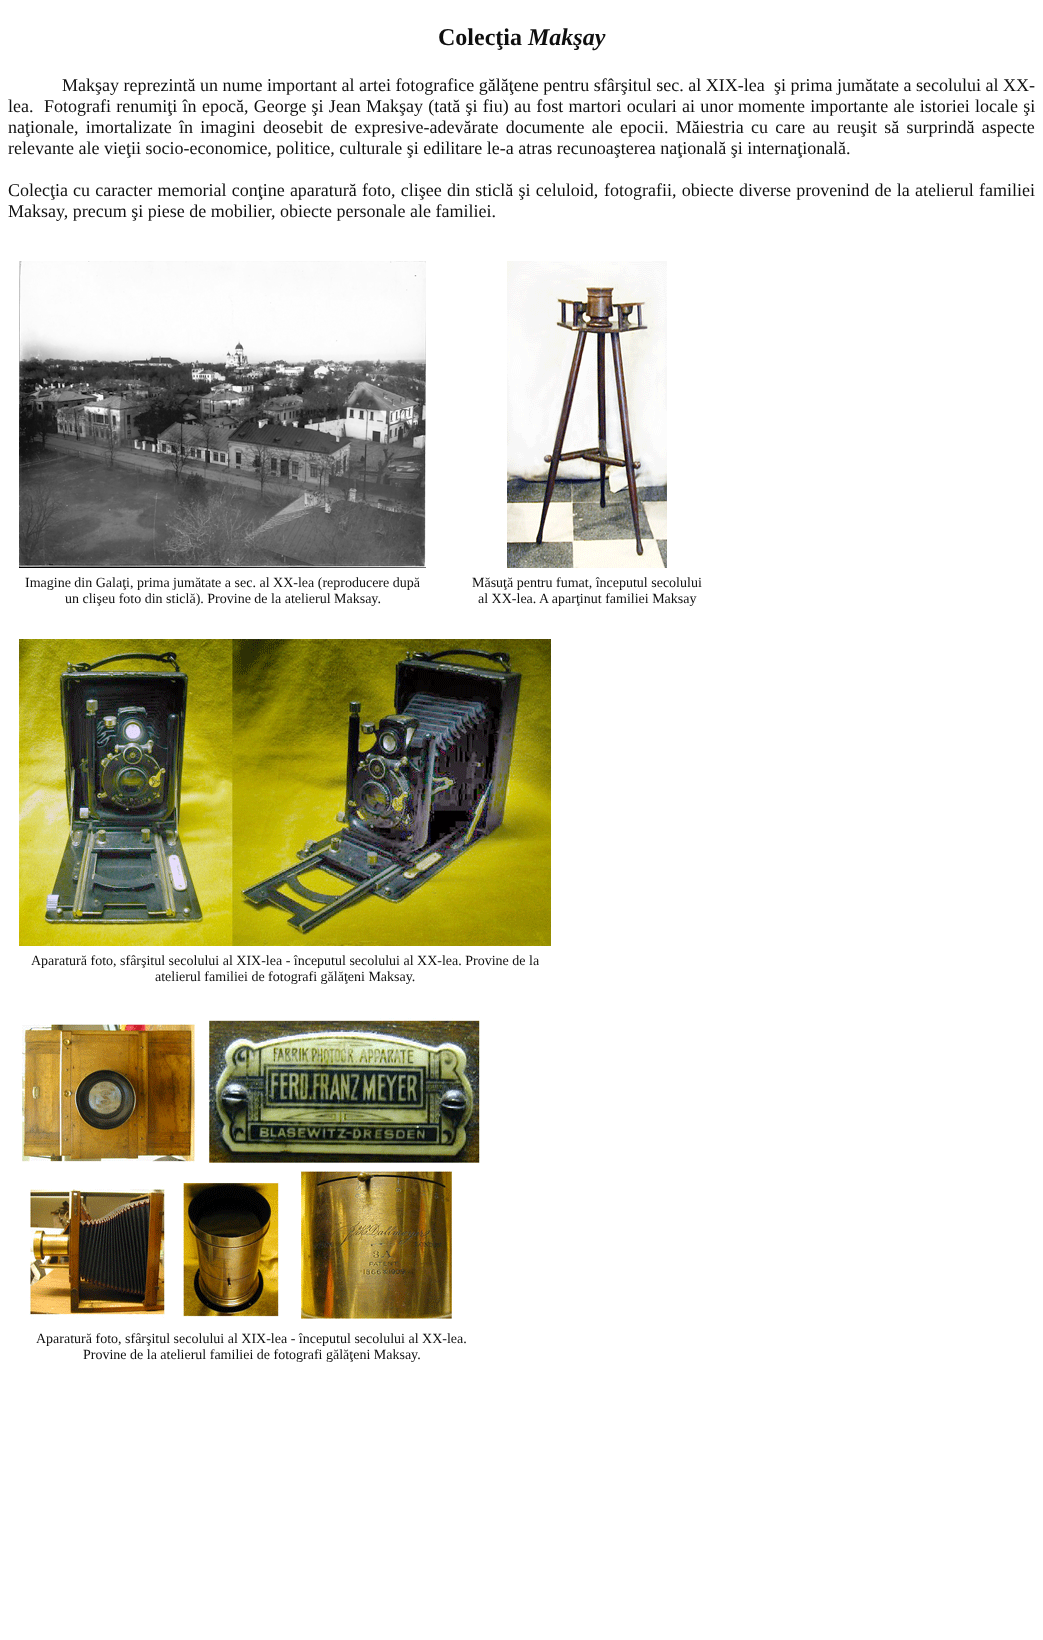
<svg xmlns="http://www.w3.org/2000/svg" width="1043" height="1640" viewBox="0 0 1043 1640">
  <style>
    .t1 { font: bold 24px Liberation Serif; fill: #0f0f0f; }
    .t2 { font: italic bold 24px Liberation Serif; fill: #0f0f0f; }
    .t3 { font: 18px Liberation Serif; fill: #0f0f0f; }
    .t4 { font: 14px Liberation Serif; fill: #0f0f0f; }
  </style>
  <rect width="100%" height="100%" fill="#fff"/>
  <text x="438" y="45" class="t1">Colecţia</text>
  <text x="528" y="45" class="t2">Makşay</text>
  <text x="62" y="91" class="t3">Makşay reprezintă un nume important al artei fotografice gălăţene pentru sfârşitul sec. al XIX-lea</text>
  <text x="774" y="91" class="t3">şi prima jumătate a secolului al XX-</text>
  <text x="8" y="112" word-spacing="0.75" class="t3" xml:space="preserve">lea.  Fotografi renumiţi în</text>
  <text x="202" y="112" word-spacing="0.75" class="t3">epocă, George şi Jean Makşay (tată şi fiu) au fost martori oculari ai unor</text>
  <text x="738" y="112" word-spacing="0.75" class="t3">momente importante ale istoriei locale şi</text>
  <text x="8" y="133" word-spacing="2.75" class="t3">naţionale, imortalizate în imagini</text>
  <text x="263" y="133" word-spacing="2.75" class="t3">deosebit de expresive-adevărate documente ale epocii. Măiestria cu care au</text>
  <text x="837" y="133" word-spacing="2.75" class="t3">reuşit să surprindă aspecte</text>
  <text x="8" y="154" class="t3">relevante ale vieţii socio-economice, politice, culturale şi edilitare le-a atras recunoaşterea naţională şi internaţională.</text>
  <text x="8" y="196" class="t3">Colecţia</text>
  <text x="73" y="196" word-spacing="0.75" class="t3">cu caracter memorial conţine aparatură foto, clişee din sticlă şi celuloid,</text>
  <text x="604" y="196" word-spacing="0.75" class="t3">fotografii, obiecte diverse provenind de la atelierul familiei</text>
  <text x="8" y="217" class="t3">Maksay, precum şi piese de mobilier, obiecte personale ale familiei.</text>
  <image x="19" y="261" width="407" height="307" href="images/1.png"/>
  <text x="25" y="587" class="t4">Imagine din Galaţi, prima jumătate a sec. al XX-lea (reproducere după</text>
  <text x="65" y="603" class="t4">un clişeu foto din sticlă). Provine de la atelierul Maksay.</text>
  <image x="507" y="261" width="160" height="307" href="images/2.png"/>
  <text x="472" y="587" class="t4">Măsuţă pentru fumat, începutul secolului</text>
  <text x="478" y="603" class="t4">al XX-lea. A aparţinut familiei Maksay</text>
  <image x="19" y="639" width="532" height="307" href="images/3.png"/>
  <text x="31" y="965" class="t4">Aparatură foto, sfârşitul secolului al XIX-lea - începutul secolului al XX-lea. Provine de la</text>
  <text x="155" y="981" class="t4">atelierul familiei de fotografi gălăţeni Maksay.</text>
  <image x="21" y="1017" width="459" height="302" href="images/4.png"/>
  <text x="36" y="1343" class="t4">Aparatură foto, sfârşitul secolului al XIX-lea - începutul secolului al XX-lea.</text>
  <text x="83" y="1359" class="t4">Provine de la atelierul familiei de fotografi gălăţeni Maksay.</text>
</svg>
